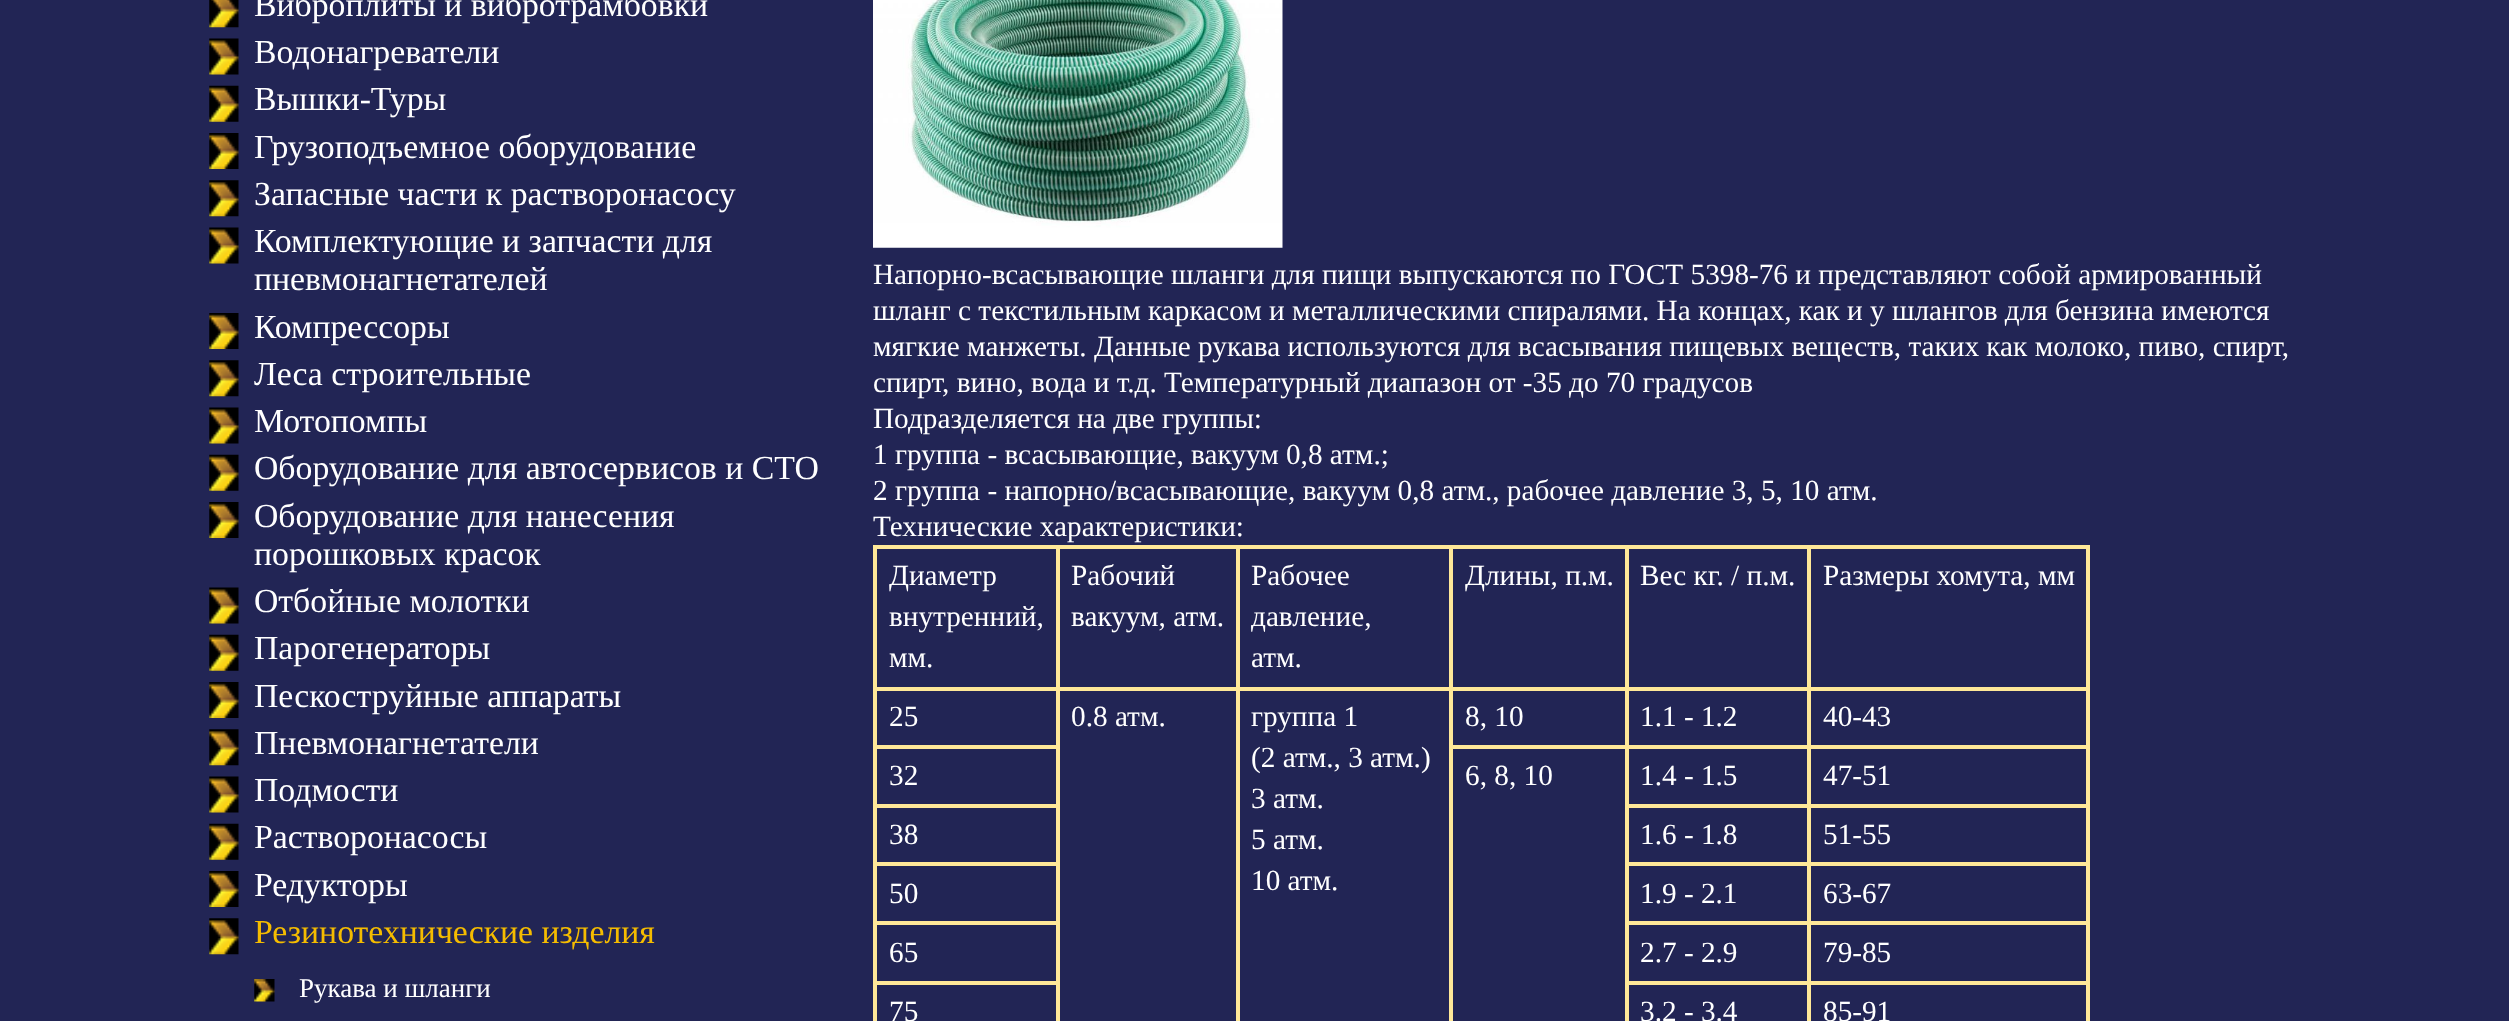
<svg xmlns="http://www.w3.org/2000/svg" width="2509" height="1021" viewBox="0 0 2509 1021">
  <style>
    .t1 { font: 33.75px Liberation Serif; fill: #fff; }
    .t2 { font: 33.75px Liberation Serif; fill: #f5bc00; }
    .t3 { font: 27px Liberation Serif; fill: #fff; }
    .t4 { font: 29.25px Liberation Serif; fill: #fff; }
  </style>
  <rect width="100%" height="100%" fill="#222555"/>
  <image x="209" y="0" width="30" height="28" href="images/1.png"/>
  <text x="254" y="16" class="t1">Виброплиты и вибротрамбовки</text>
  <image x="209" y="38" width="30" height="37" href="images/2.png"/>
  <text x="254" y="63" class="t1">Водонагреватели</text>
  <image x="209" y="85" width="30" height="37" href="images/3.png"/>
  <text x="254" y="110" class="t1">Вышки-Туры</text>
  <image x="209" y="133" width="30" height="36" href="images/4.png"/>
  <text x="254" y="158" class="t1">Грузоподъемное оборудование</text>
  <image x="209" y="180" width="30" height="37" href="images/5.png"/>
  <text x="254" y="205" class="t1">Запасные части к растворонасосу</text>
  <image x="209" y="227" width="30" height="37" href="images/2.png"/>
  <text x="254" y="252" class="t1">Комплектующие и запчасти для</text>
  <text x="254" y="290" class="t1">пневмонагнетателей</text>
  <image x="209" y="313" width="30" height="36" href="images/4.png"/>
  <text x="254" y="338" class="t1">Компрессоры</text>
  <image x="209" y="360" width="30" height="37" href="images/6.png"/>
  <text x="254" y="385" class="t1">Леса строительные</text>
  <image x="209" y="407" width="30" height="37" href="images/2.png"/>
  <text x="254" y="432" class="t1">Мотопомпы</text>
  <image x="209" y="454" width="30" height="37" href="images/3.png"/>
  <text x="254" y="479" class="t1">Оборудование для автосервисов и СТО</text>
  <image x="209" y="502" width="30" height="36" href="images/4.png"/>
  <text x="254" y="527" class="t1">Оборудование для нанесения</text>
  <text x="254" y="565" class="t1">порошковых красок</text>
  <image x="209" y="587" width="30" height="37" href="images/7.png"/>
  <text x="254" y="612" class="t1">Отбойные молотки</text>
  <image x="209" y="634" width="30" height="37" href="images/3.png"/>
  <text x="254" y="659" class="t1">Парогенераторы</text>
  <image x="209" y="682" width="30" height="36" href="images/8.png"/>
  <text x="254" y="707" class="t1">Пескоструйные аппараты</text>
  <image x="209" y="729" width="30" height="37" href="images/6.png"/>
  <text x="254" y="754" class="t1">Пневмонагнетатели</text>
  <image x="209" y="776" width="30" height="37" href="images/2.png"/>
  <text x="254" y="801" class="t1">Подмости</text>
  <image x="209" y="823" width="30" height="37" href="images/3.png"/>
  <text x="254" y="848" class="t1">Растворонасосы</text>
  <image x="209" y="871" width="30" height="36" href="images/4.png"/>
  <text x="254" y="896" class="t1">Редукторы</text>
  <image x="209" y="918" width="30" height="37" href="images/6.png"/>
  <text x="254" y="943" class="t2">Резинотехнические изделия</text>
  <image x="254" y="979" width="21" height="23" href="images/9.png"/>
  <text x="299" y="997" class="t3">Рукава и шланги</text>
  <image x="873" y="0" width="410" height="248" href="images/10.png"/>
  <text x="873" y="284" class="t4">Напорно-всасывающие шланги для пищи выпускаются по ГОСТ 5398-76 и представляют собой армированный</text>
  <text x="873" y="320" class="t4">шланг с текстильным каркасом и металлическими спиралями. На концах, как и у шлангов для бензина имеются</text>
  <text x="873" y="356" class="t4">мягкие манжеты. Данные рукава используются для всасывания пищевых веществ, таких как молоко, пиво, спирт,</text>
  <text x="873" y="392" class="t4">спирт, вино, вода и т.д. Температурный диапазон от -35 до 70 градусов</text>
  <text x="873" y="428" class="t4">Подразделяется на две группы:</text>
  <text x="873" y="464" class="t4">1 группа - всасывающие, вакуум 0,8 атм.;</text>
  <text x="873" y="500" class="t4">2 группа - напорно/всасывающие, вакуум 0,8 атм., рабочее давление 3, 5, 10 атм.</text>
  <text x="873" y="536" class="t4">Технические характеристики:</text>
  <rect x="874" y="546" width="1215" height="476" fill="none" stroke="#ffe898" stroke-width="2"/>
  <rect x="876" y="548" width="181" height="140" fill="none" stroke="#ffe898" stroke-width="2"/>
  <text x="889" y="585" class="t4">Диаметр</text>
  <text x="889" y="626" class="t4">внутренний,</text>
  <text x="889" y="667" class="t4">мм.</text>
  <rect x="1059" y="548" width="178" height="140" fill="none" stroke="#ffe898" stroke-width="2"/>
  <text x="1071" y="585" class="t4">Рабочий</text>
  <text x="1071" y="626" class="t4">вакуум, атм.</text>
  <rect x="1239" y="548" width="211" height="140" fill="none" stroke="#ffe898" stroke-width="2"/>
  <text x="1251" y="585" class="t4">Рабочее</text>
  <text x="1251" y="626" class="t4">давление,</text>
  <text x="1251" y="667" class="t4">атм.</text>
  <rect x="1452" y="548" width="174" height="140" fill="none" stroke="#ffe898" stroke-width="2"/>
  <text x="1465" y="585" class="t4">Длины, п.м.</text>
  <rect x="1628" y="548" width="180" height="140" fill="none" stroke="#ffe898" stroke-width="2"/>
  <text x="1640" y="585" class="t4">Вес кг. / п.м.</text>
  <rect x="1810" y="548" width="277" height="140" fill="none" stroke="#ffe898" stroke-width="2"/>
  <text x="1823" y="585" class="t4">Размеры хомута, мм</text>
  <rect x="876" y="690" width="181" height="56" fill="none" stroke="#ffe898" stroke-width="2"/>
  <text x="889" y="726" class="t4">25</text>
  <rect x="1059" y="690" width="178" height="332" fill="none" stroke="#ffe898" stroke-width="2"/>
  <text x="1071" y="726" class="t4">0.8 атм.</text>
  <rect x="1239" y="690" width="211" height="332" fill="none" stroke="#ffe898" stroke-width="2"/>
  <text x="1251" y="726" class="t4">группа 1</text>
  <text x="1251" y="767" class="t4">(2 атм., 3 атм.)</text>
  <text x="1251" y="808" class="t4">3 атм.</text>
  <text x="1251" y="849" class="t4">5 атм.</text>
  <text x="1251" y="890" class="t4">10 атм.</text>
  <rect x="1452" y="690" width="174" height="56" fill="none" stroke="#ffe898" stroke-width="2"/>
  <text x="1465" y="726" class="t4">8, 10</text>
  <rect x="1628" y="690" width="180" height="56" fill="none" stroke="#ffe898" stroke-width="2"/>
  <text x="1640" y="726" class="t4">1.1 - 1.2</text>
  <rect x="1810" y="690" width="277" height="56" fill="none" stroke="#ffe898" stroke-width="2"/>
  <text x="1823" y="726" class="t4">40-43</text>
  <rect x="876" y="748" width="181" height="57" fill="none" stroke="#ffe898" stroke-width="2"/>
  <text x="889" y="785" class="t4">32</text>
  <rect x="1452" y="748" width="174" height="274" fill="none" stroke="#ffe898" stroke-width="2"/>
  <text x="1465" y="785" class="t4">6, 8, 10</text>
  <rect x="1628" y="748" width="180" height="57" fill="none" stroke="#ffe898" stroke-width="2"/>
  <text x="1640" y="785" class="t4">1.4 - 1.5</text>
  <rect x="1810" y="748" width="277" height="57" fill="none" stroke="#ffe898" stroke-width="2"/>
  <text x="1823" y="785" class="t4">47-51</text>
  <rect x="876" y="807" width="181" height="56" fill="none" stroke="#ffe898" stroke-width="2"/>
  <text x="889" y="844" class="t4">38</text>
  <rect x="1628" y="807" width="180" height="56" fill="none" stroke="#ffe898" stroke-width="2"/>
  <text x="1640" y="844" class="t4">1.6 - 1.8</text>
  <rect x="1810" y="807" width="277" height="56" fill="none" stroke="#ffe898" stroke-width="2"/>
  <text x="1823" y="844" class="t4">51-55</text>
  <rect x="876" y="865" width="181" height="57" fill="none" stroke="#ffe898" stroke-width="2"/>
  <text x="889" y="903" class="t4">50</text>
  <rect x="1628" y="865" width="180" height="57" fill="none" stroke="#ffe898" stroke-width="2"/>
  <text x="1640" y="903" class="t4">1.9 - 2.1</text>
  <rect x="1810" y="865" width="277" height="57" fill="none" stroke="#ffe898" stroke-width="2"/>
  <text x="1823" y="903" class="t4">63-67</text>
  <rect x="876" y="924" width="181" height="58" fill="none" stroke="#ffe898" stroke-width="2"/>
  <text x="889" y="962" class="t4">65</text>
  <rect x="1628" y="924" width="180" height="58" fill="none" stroke="#ffe898" stroke-width="2"/>
  <text x="1640" y="962" class="t4">2.7 - 2.9</text>
  <rect x="1810" y="924" width="277" height="58" fill="none" stroke="#ffe898" stroke-width="2"/>
  <text x="1823" y="962" class="t4">79-85</text>
  <rect x="876" y="984" width="181" height="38" fill="none" stroke="#ffe898" stroke-width="2"/>
  <text x="889" y="1021" class="t4">75</text>
  <rect x="1628" y="984" width="180" height="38" fill="none" stroke="#ffe898" stroke-width="2"/>
  <text x="1640" y="1021" class="t4">3.2 - 3.4</text>
  <rect x="1810" y="984" width="277" height="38" fill="none" stroke="#ffe898" stroke-width="2"/>
  <text x="1823" y="1021" class="t4">85-91</text>
</svg>
